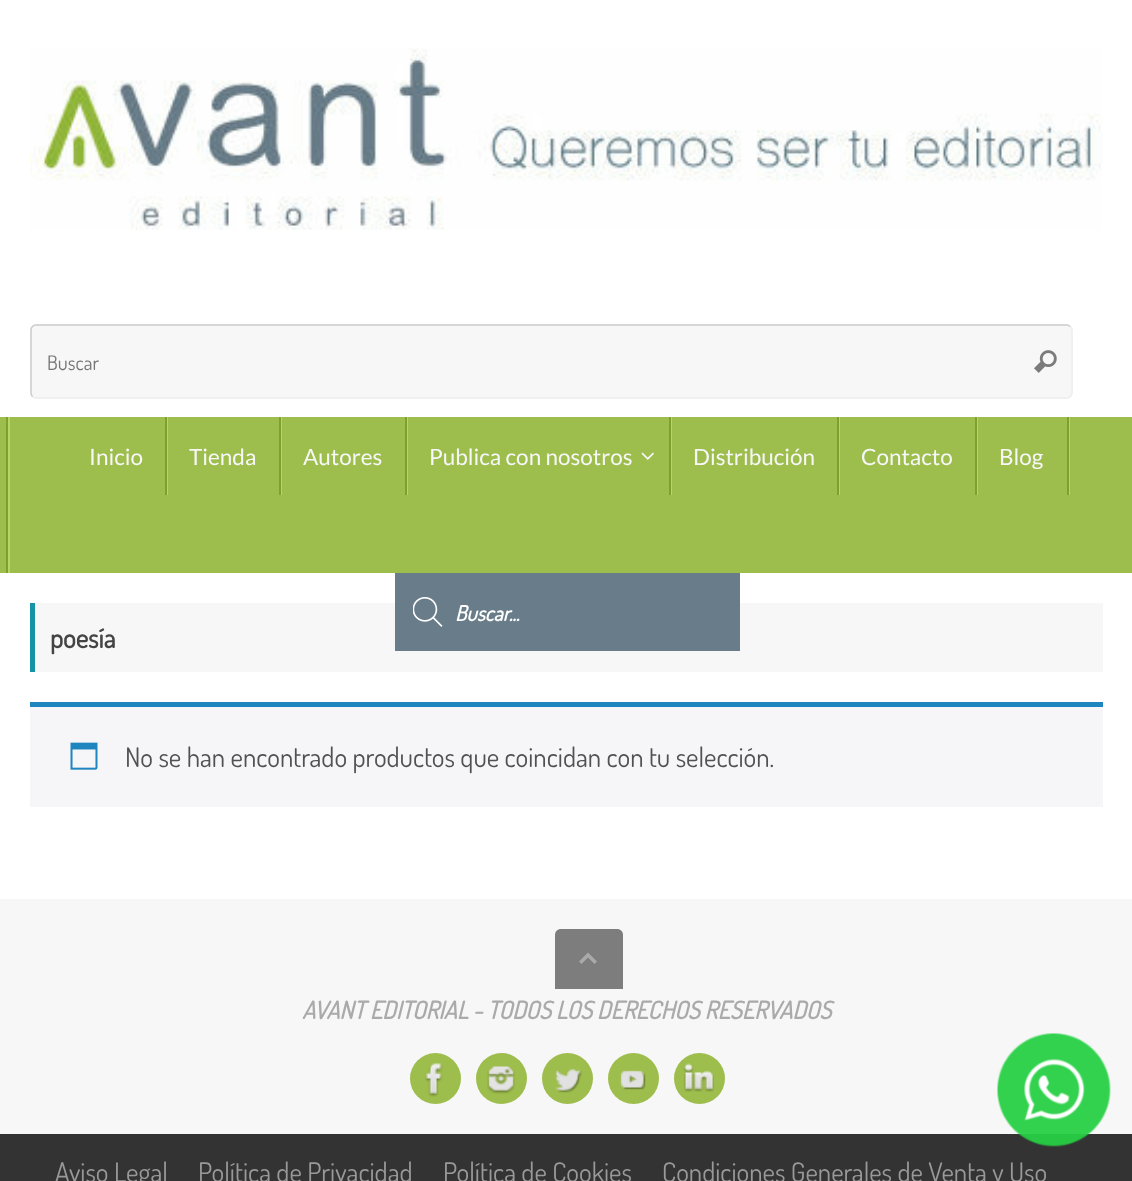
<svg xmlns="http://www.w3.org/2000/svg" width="1132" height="1181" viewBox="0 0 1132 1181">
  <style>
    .t1 { font: 20px Dosis; fill: #757575; }
    .t2 { font: 22.5px Lato; fill: #f7f7f7; }
    .t3 { font: italic bold 21px Dosis; fill: #fff; }
    .t4 { font: bold 27px Dosis; fill: #444; }
    .t5 { font: 27px Dosis; fill: #515151; }
    .t6 { font: italic bold 24.3px Dosis; fill: #aaa; }
    .t7 { font: 27px Dosis; fill: #999; }
  </style>
  <rect width="100%" height="100%" fill="#fff"/>
  <image x="30" y="48" width="1072" height="182" href="images/1.png"/>
  <rect x="30" y="324" width="1043" height="75" rx="6" fill="#f7f7f7"/>
  <path d="M1070 326.5C1071 327.5 1072 328.5 1072 330V393C1072 394.5 1071 395.5 1070 396.5C1069 397.5 1068 398 1066.5 398H36C34.5 398 33.5 397.5 32.5 396.5" fill="none" stroke="#eee" stroke-width="1.5"/>
  <path d="M32.5 396.5C31.5 395.5 31 394.5 31 393V330C31 328.5 31.5 327.5 32.5 326.5C33.5 325.5 34.5 325 36 325H1066.5C1068 325 1069 325.5 1070 326.5" fill="none" stroke="#ccc" stroke-width="1.5"/>
  <text x="47" y="370" class="t1">Buscar</text>
  <image x="1034" y="350" width="23" height="23" href="images/2.png"/>
  <rect x="0" y="417" width="1132" height="156" fill="#9dbd4c"/>
  <rect x="6" y="417" width="2" height="156" fill="#7f9f2e"/>
  <rect x="8" y="417" width="2" height="156" fill="#b5d564"/>
  <rect x="167" y="417" width="1" height="78" fill="#b5d564"/>
  <rect x="165" y="417" width="2" height="78" fill="#7f9f2e"/>
  <text x="89" y="465" class="t2">Inicio</text>
  <rect x="281" y="417" width="1" height="78" fill="#b5d564"/>
  <rect x="279" y="417" width="2" height="78" fill="#7f9f2e"/>
  <text x="189" y="465" class="t2">Tienda</text>
  <rect x="407" y="417" width="1" height="78" fill="#b5d564"/>
  <rect x="405" y="417" width="2" height="78" fill="#7f9f2e"/>
  <text x="303" y="465" class="t2">Autores</text>
  <rect x="671" y="417" width="1" height="78" fill="#b5d564"/>
  <rect x="669" y="417" width="2" height="78" fill="#7f9f2e"/>
  <text x="429" y="465" class="t2">Publica con nosotros</text>
  <image x="641" y="452" width="13" height="8" href="images/3.png"/>
  <rect x="839" y="417" width="1" height="78" fill="#b5d564"/>
  <rect x="837" y="417" width="2" height="78" fill="#7f9f2e"/>
  <text x="693" y="465" class="t2">Distribución</text>
  <rect x="977" y="417" width="1" height="78" fill="#b5d564"/>
  <rect x="975" y="417" width="2" height="78" fill="#7f9f2e"/>
  <text x="861" y="465" class="t2">Contacto</text>
  <rect x="1069" y="417" width="1" height="78" fill="#b5d564"/>
  <rect x="1067" y="417" width="2" height="78" fill="#7f9f2e"/>
  <text x="999" y="465" class="t2">Blog</text>
  <rect x="35" y="603" width="1068" height="69" fill="#f7f7f7"/>
  <rect x="395" y="573" width="345" height="78" fill="#697c89"/>
  <image x="413" y="597" width="30" height="30" href="images/4.png"/>
  <text x="455" y="621" class="t3">Buscar...</text>
  <rect x="30" y="603" width="5" height="69" fill="#1693a5"/>
  <text x="50" y="648" class="t4">poesía</text>
  <rect x="30" y="707" width="1073" height="100" fill="#f6f5f8"/>
  <rect x="30" y="702" width="1073" height="5" fill="#1e85be"/>
  <image x="70" y="742" width="28" height="28" href="images/5.png"/>
  <text x="125" y="767" class="t5">No se han encontrado productos que coincidan con tu selección.</text>
  <rect x="0" y="899" width="1132" height="235" fill="#f7f7f7"/>
  <path d="M561 929H617C620.5 929 623 931.5 623 935V989H555V935C555 931.5 557.5 929 561 929Z" fill="#7d7d7d"/>
  <path d="M579 961.5L588 952.5L597 961.5L594.5 964L588 957.5L581.5 964Z" fill="#aaa"/>
  <text x="302" y="1019" class="t6">AVANT EDITORIAL - TODOS LOS DERECHOS RESERVADOS</text>
  <circle cx="435.5" cy="1078.5" r="25.5" fill="#9dbd4c"/>
  <image x="425" y="1063" width="18" height="34" href="images/6.png"/>
  <circle cx="501.5" cy="1078.5" r="25.5" fill="#9dbd4c"/>
  <image x="487" y="1066" width="28" height="28" href="images/7.png"/>
  <circle cx="567.5" cy="1078.5" r="25.5" fill="#9dbd4c"/>
  <image x="555" y="1069" width="27" height="24" href="images/8.png"/>
  <circle cx="633.5" cy="1078.5" r="25.5" fill="#9dbd4c"/>
  <image x="620" y="1070" width="26" height="20" href="images/9.png"/>
  <circle cx="699.5" cy="1078.5" r="25.5" fill="#9dbd4c"/>
  <image x="683" y="1063" width="31" height="29" href="images/10.png"/>
  <rect x="0" y="1134" width="1132" height="47" fill="#333"/>
  <image x="997" y="1033" width="114" height="114" href="images/11.png"/>
  <text x="55" y="1182" class="t7">Aviso Legal</text>
  <text x="198" y="1182" class="t7">Política de Privacidad</text>
  <text x="443" y="1182" class="t7">Política de Cookies</text>
  <text x="662" y="1182" class="t7">Condiciones Generales de Venta y Uso</text>
</svg>
